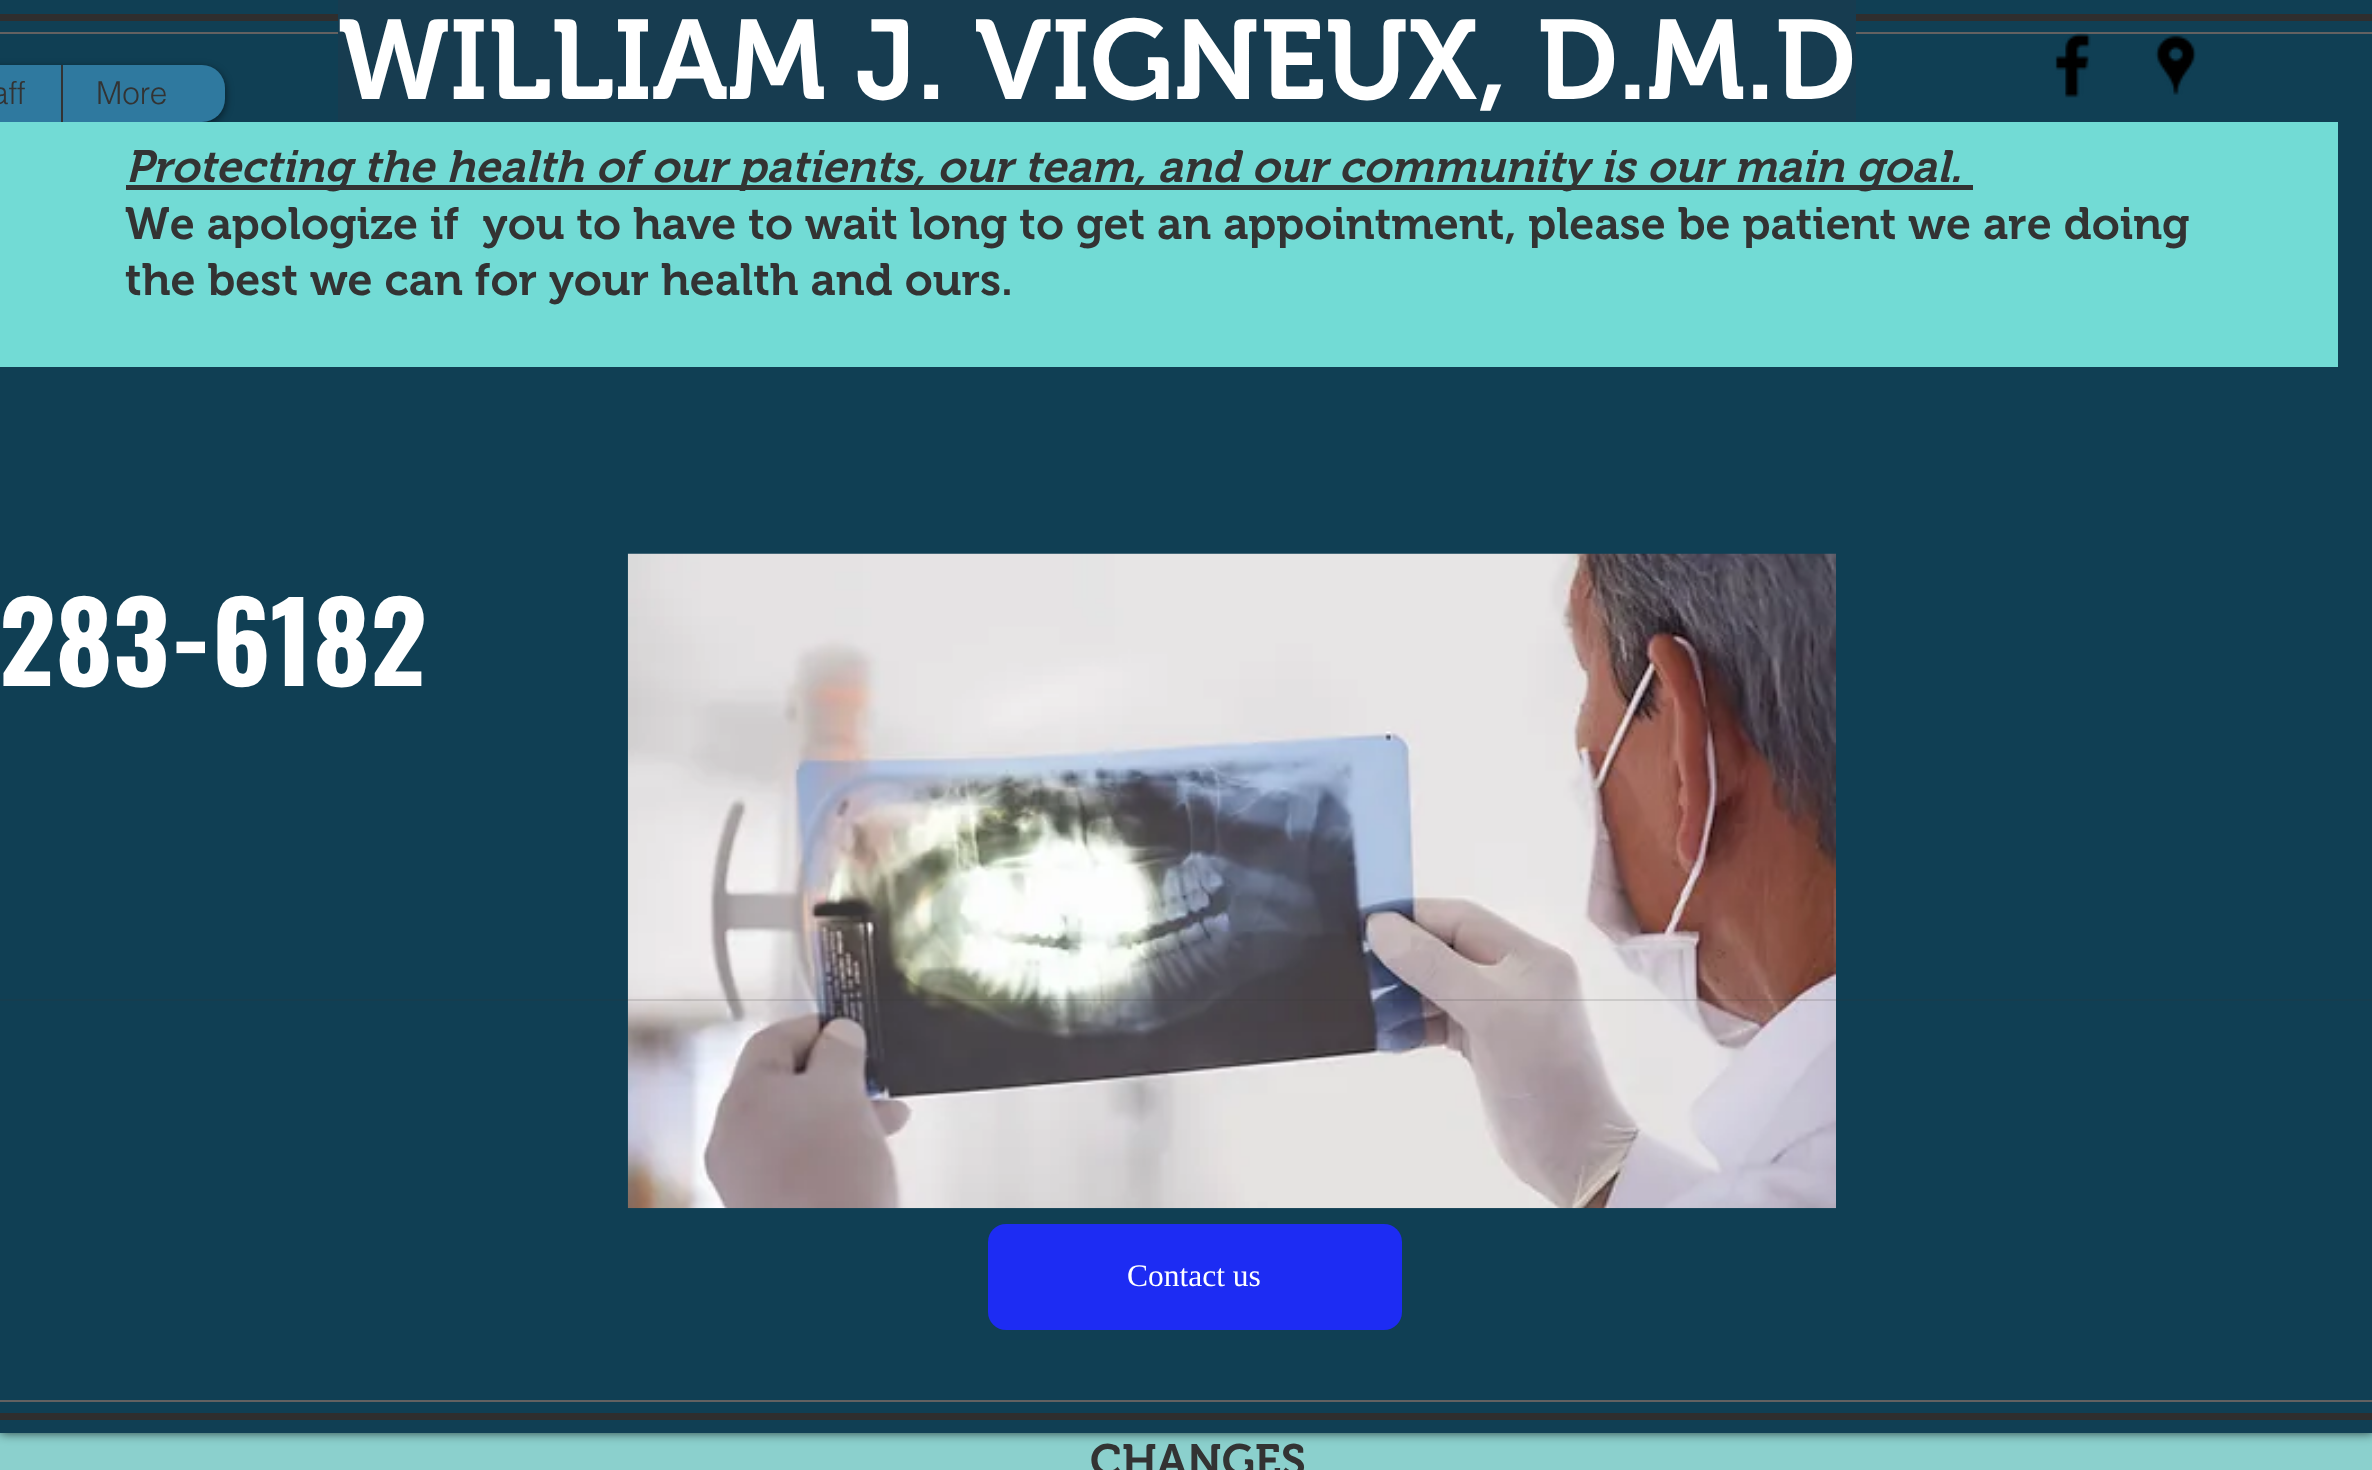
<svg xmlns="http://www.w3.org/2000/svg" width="2372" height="1470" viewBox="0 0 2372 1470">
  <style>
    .t1 { font: 300 31.5px helvetica; fill: #333; }
    .t2 { font: 600 112.5px 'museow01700'; fill: #fff; }
    .t3 { font: italic 600 45px 'museow01700'; fill: #333; }
    .t4 { font: 600 45px 'museow01700'; fill: #333; }
    .t5 { font: bold 110px Oswald; fill: #fff; }
    .t6 { font: 31.5px Liberation Serif; fill: #fff; }
  </style>
  <rect width="100%" height="100%" fill="#8bd0cd"/>
  <rect x="0" y="0" width="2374" height="1433" fill="#000000b3" filter="blur(5.5px)"/>
  <rect x="0" y="0" width="2372" height="1433" fill="#103f54"/>
  <rect x="0" y="14" width="2372" height="7" fill="#2f2e2e"/>
  <rect x="0" y="1413" width="2372" height="7" fill="#2f2e2e"/>
  <rect x="0" y="32" width="2372" height="2" fill="#636161"/>
  <rect x="0" y="1400" width="2372" height="2" fill="#636161"/>
  <rect x="-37" y="68" width="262" height="56" rx="23" fill="#00000099" filter="blur(4.5px)"/>
  <rect x="-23" y="65" width="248" height="57" rx="23" fill="#2f799f"/>
  <text x="-9" y="104" class="t1">aff</text>
  <rect x="61" y="65" width="2" height="57" fill="#333"/>
  <text x="96" y="104" class="t1">More</text>
  <rect x="338" y="0" width="1518" height="122" fill="#173c50"/>
  <text x="338" y="99" class="t2">WILLIAM J. VIGNEUX, D.M.D</text>
  <image x="2055" y="33" width="36" height="65" href="images/1.png"/>
  <image x="2155" y="35" width="41" height="60" href="images/2.png"/>
  <rect x="0" y="122" width="2338" height="245" fill="#72dbd5"/>
  <rect x="126" y="185" width="1847" height="5" fill="#333"/>
  <text x="125" y="182" class="t3">Protecting the health of our patients, our team, and our community is our main goal.</text>
  <text x="125" y="239" class="t4" xml:space="preserve">We apologize if  you to have to wait long to get an appointment, please be patient we are doing</text>
  <text x="125" y="295" class="t4">the best we can for your health and ours.</text>
  <text x="-1" y="686" class="t5">283-6182</text>
  <image x="627" y="553" width="1209" height="656" href="images/3.png"/>
  <rect x="0" y="999" width="2372" height="2" fill="#33333326"/>
  <rect x="988" y="1224" width="414" height="106" rx="18" fill="#1d2cf3"/>
  <text x="1127" y="1286" class="t6">Contact us</text>
  <text x="1090" y="1476" class="t4">CHANGES</text>
</svg>
